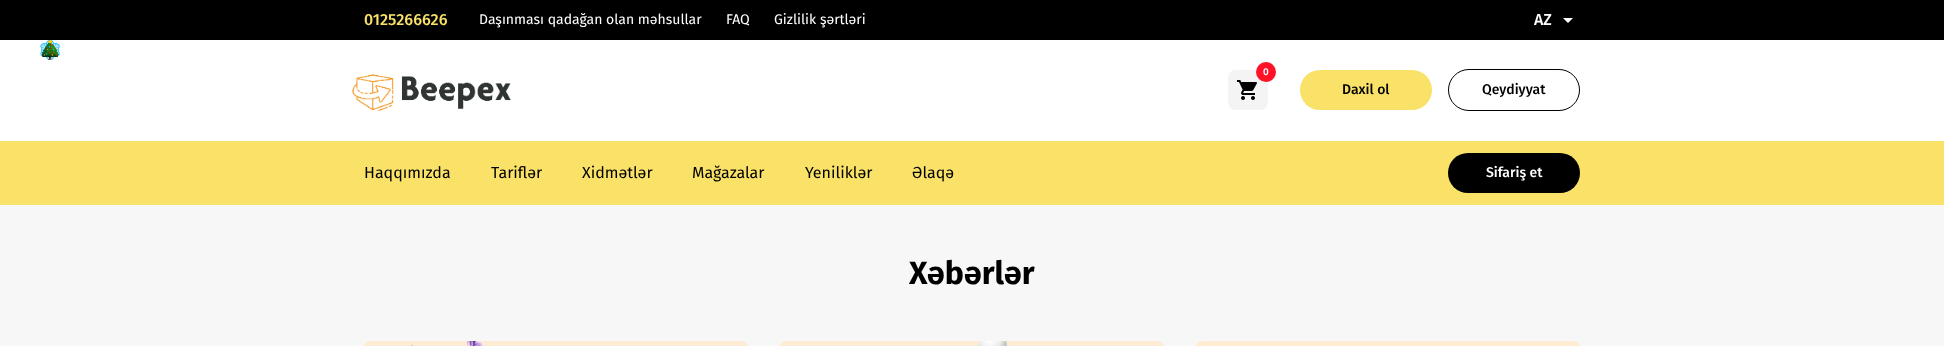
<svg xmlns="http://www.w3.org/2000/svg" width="1944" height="346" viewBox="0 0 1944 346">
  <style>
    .t1 { font: 500 16px Fira Sans; fill: #fae268; }
    .t2 { font: 14px Fira Sans; fill: #fff; }
    .t3 { font: 500 16px Fira Sans; fill: #fff; }
    .t4 { font: 500 10px Fira Sans; fill: #fff; }
    .t5 { font: 500 14px Fira Sans; fill: #000; }
    .t6 { font: 16px Fira Sans; fill: #000; }
    .t7 { font: 500 14px Fira Sans; fill: #fff; }
    .t8 { font: bold 32px Fira Sans; fill: #000; }
  </style>
  <rect width="100%" height="100%" fill="#fff"/>
  <image x="40" y="40" width="20" height="20" href="images/1.png"/>
  <image x="40" y="40" width="20" height="20" href="images/2.png"/>
  <image x="40" y="40" width="20" height="20" href="images/3.png"/>
  <image x="40" y="40" width="20" height="20" href="images/4.png"/>
  <image x="40" y="40" width="20" height="20" href="images/5.png"/>
  <image x="40" y="40" width="20" height="20" href="images/6.png"/>
  <image x="40" y="40" width="20" height="20" href="images/7.png"/>
  <image x="40" y="40" width="20" height="20" href="images/8.png"/>
  <image x="40" y="40" width="20" height="20" href="images/9.png"/>
  <image x="40" y="40" width="20" height="20" href="images/10.png"/>
  <image x="40" y="40" width="20" height="20" href="images/11.png"/>
  <image x="40" y="40" width="20" height="20" href="images/12.png"/>
  <image x="40" y="40" width="20" height="20" href="images/13.png"/>
  <image x="40" y="40" width="20" height="20" href="images/14.png"/>
  <image x="40" y="40" width="20" height="17" href="images/15.png"/>
  <image x="40" y="43" width="20" height="14" href="images/27.png"/>
  <image x="40" y="43" width="20" height="14" href="images/28.png"/>
  <image x="40" y="43" width="20" height="14" href="images/29.png"/>
  <image x="40" y="43" width="20" height="14" href="images/30.png"/>
  <image x="40" y="43" width="20" height="14" href="images/31.png"/>
  <image x="40" y="43" width="20" height="14" href="images/32.png"/>
  <image x="41" y="43" width="19" height="14" href="images/33.png"/>
  <image x="42" y="43" width="18" height="14" href="images/34.png"/>
  <image x="42" y="40" width="17" height="20" href="images/16.png"/>
  <image x="42" y="40" width="17" height="20" href="images/17.png"/>
  <image x="42" y="40" width="17" height="20" href="images/18.png"/>
  <image x="42" y="40" width="17" height="20" href="images/19.png"/>
  <image x="42" y="40" width="17" height="20" href="images/20.png"/>
  <image x="42" y="40" width="17" height="20" href="images/21.png"/>
  <image x="42" y="40" width="17" height="20" href="images/22.png"/>
  <image x="42" y="40" width="17" height="20" href="images/23.png"/>
  <image x="42" y="40" width="17" height="20" href="images/24.png"/>
  <image x="42" y="40" width="17" height="20" href="images/25.png"/>
  <image x="42" y="40" width="17" height="20" href="images/26.png"/>
  <rect x="0" y="0" width="1944" height="40" fill="#000"/>
  <text x="364" y="25" class="t1">0125266626</text>
  <text x="479" y="24" class="t2">Daşınması qadağan olan məhsullar</text>
  <text x="726" y="24" class="t2">FAQ</text>
  <text x="774" y="24" class="t2">Gizlilik şərtləri</text>
  <text x="1534" y="25" class="t3">AZ</text>
  <path d="M1563 18L1568 23L1573 18Z" fill="#fff"/>
  <image x="352" y="74" width="159" height="38" href="images/35.png"/>
  <rect x="1228" y="70" width="40" height="40" rx="8" fill="#f4f4f4"/>
  <image x="1237" y="80" width="20" height="20" href="images/36.png"/>
  <circle cx="1266" cy="72" r="10" fill="#ff1228"/>
  <text x="1263" y="75" class="t4">0</text>
  <rect x="1300" y="70" width="132" height="40" rx="20" fill="#fae268"/>
  <text x="1342" y="94" class="t5">Daxil ol</text>
  <rect x="1448.5" y="69.5" width="131" height="41" rx="20.5" fill="none" stroke="#000"/>
  <text x="1482" y="94" class="t5">Qeydiyyat</text>
  <rect x="0" y="141" width="1944" height="64" fill="#fae268"/>
  <text x="364" y="178" class="t6">Haqqımızda</text>
  <text x="491" y="178" class="t6">Tariflər</text>
  <text x="582" y="178" class="t6">Xidmətlər</text>
  <text x="692" y="178" class="t6">Mağazalar</text>
  <text x="805" y="178" class="t6">Yeniliklər</text>
  <text x="912" y="178" class="t6">Əlaqə</text>
  <rect x="1448" y="153" width="132" height="40" rx="20" fill="#000"/>
  <text x="1486" y="177" class="t7">Sifariş et</text>
  <rect x="0" y="205" width="1944" height="141" fill="#f7f7f7"/>
  <text x="909" y="284" class="t8">Xəbərlər</text>
  <image x="364" y="341" width="384" height="5" href="images/37.png"/>
  <image x="780" y="341" width="384" height="5" href="images/38.png"/>
  <image x="1196" y="341" width="384" height="5" href="images/39.png"/>
</svg>
